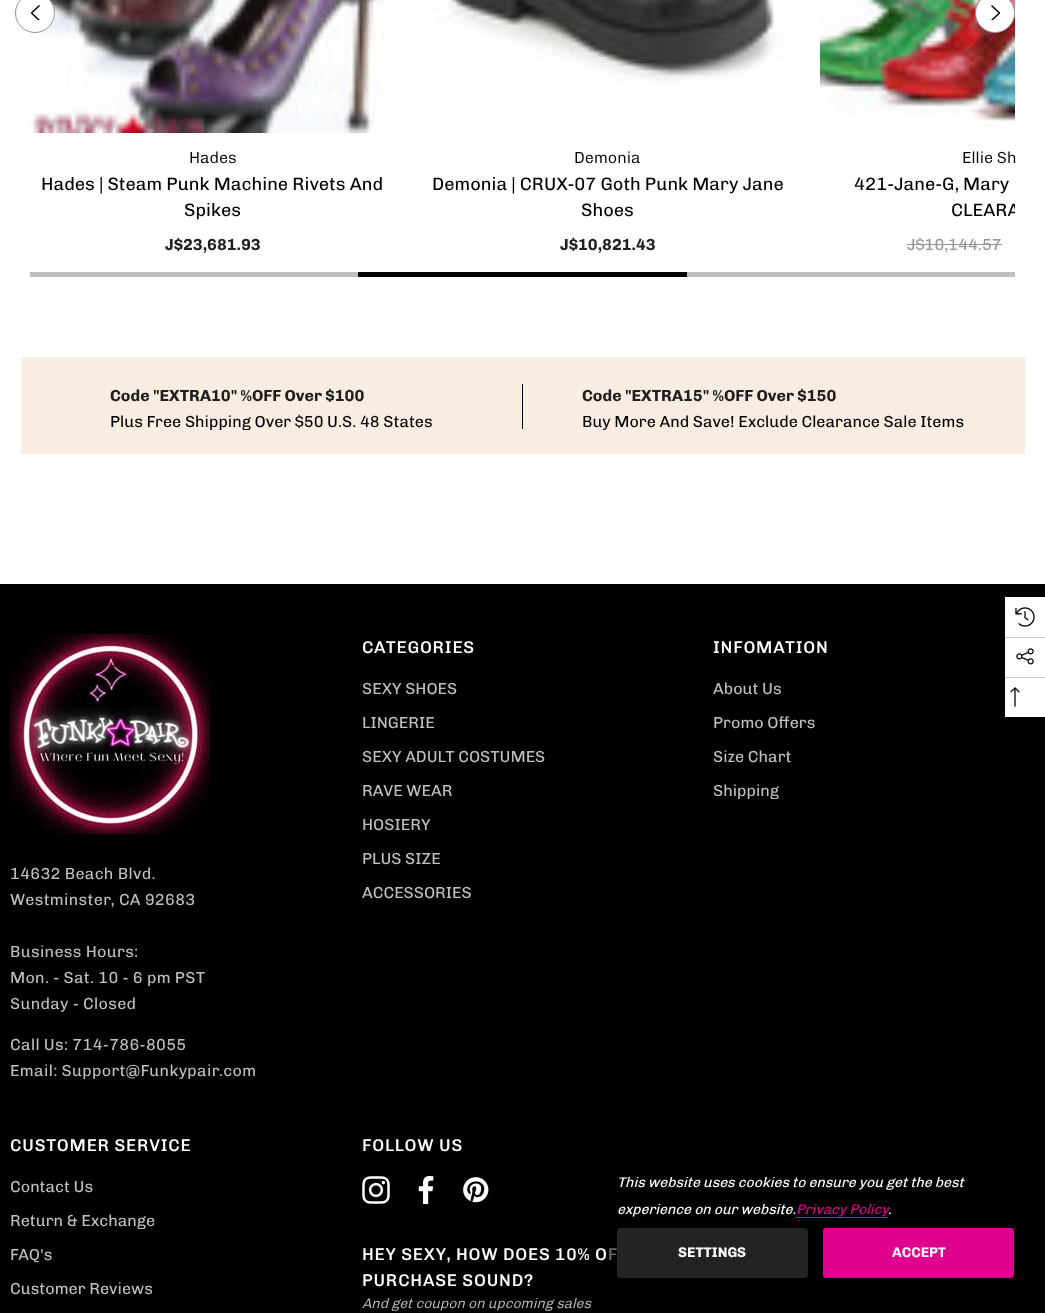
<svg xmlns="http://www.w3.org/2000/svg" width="1045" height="1313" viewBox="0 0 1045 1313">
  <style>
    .t1 { font: 300 16px Chivo; fill: #000; }
    .t2 { font: 18px Chivo; fill: #000; }
    .t3 { font: bold 16px Chivo; fill: #202020; }
    .t4 { font: 16px Chivo; fill: #969696; }
    .t5 { font: 16px Chivo; fill: #000; }
    .t6 { font: 500 17px Chivo; letter-spacing: 0.8px; fill: #fff; }
    .t7 { font: 16px Chivo; fill: #bfbfbf; }
    .t8 { font: 16px Chivo; letter-spacing: 0.3px; fill: #bfbfbf; }
    .t9 { font: italic 300 14px Chivo; fill: #bfbfbf; }
    .t10 { font: italic 14px Chivo; letter-spacing: -0.05px; fill: #fff; }
    .t11 { font: italic 14px Chivo; letter-spacing: -0.05px; fill: #e00090; }
    .t12 { font: bold 14px Chivo; fill: #fff; }
    .t13 { font: bold 14px Chivo; fill: #f5f5f5; }
  </style>
  <defs>
    <clipPath id="clip1"><rect x="31" y="5" width="9" height="15"/></clipPath>
    <clipPath id="clip2"><rect x="991" y="5" width="9" height="15"/></clipPath>
    <clipPath id="clip3"><rect x="820" y="171" width="195" height="57"/></clipPath>
  </defs>
  <rect width="100%" height="100%" fill="#fff"/>
  <image x="30" y="0" width="355" height="133" href="images/1.png"/>
  <circle cx="35" cy="13" r="19.5" fill="#fff" stroke="#949494"/>
  <g clip-path="url(#clip1)">
    <path d="M39.5 5.5L31.5 13L39.5 20.5" fill="none" stroke="#000" stroke-width="1.5"/>
  </g>
  <image x="820" y="0" width="195" height="133" href="images/3.png"/>
  <circle cx="995" cy="13" r="19.5" fill="#fff" stroke="#949494"/>
  <g clip-path="url(#clip2)">
    <path d="M991.5 5.5L999.5 13L991.5 20.5" fill="none" stroke="#000" stroke-width="1.5"/>
  </g>
  <text x="189" y="163" class="t1">Hades</text>
  <text x="41" y="190" class="t2">Hades | Steam Punk Machine Rivets And</text>
  <text x="184" y="216" class="t2">Spikes</text>
  <text x="165" y="250" class="t3">J$23,681.93</text>
  <image x="435" y="0" width="350" height="84" href="images/2.png"/>
  <text x="574" y="163" class="t1">Demonia</text>
  <text x="432" y="190" class="t2">Demonia | CRUX-07 Goth Punk Mary Jane</text>
  <text x="581" y="216" class="t2">Shoes</text>
  <text x="560" y="250" class="t3">J$10,821.43</text>
  <text x="962" y="163" class="t1">Ellie Sh</text>
  <text x="854" y="190" class="t2">421-Jane-G, Mary</text>
  <g clip-path="url(#clip3)">
    <text x="951" y="216" class="t2">CLEARA</text>
  </g>
  <text x="907" y="250" class="t4">J$10,144.57</text>
  <rect x="907" y="244" width="95" height="1" fill="#969696"/>
  <rect x="30" y="272" width="985" height="5" fill="#bfbfbf"/>
  <rect x="358" y="272" width="329" height="5" fill="#000"/>
  <rect x="21" y="357" width="1004" height="97" fill="#f9ede1"/>
  <text x="110" y="401" class="t3">Code "EXTRA10" %OFF Over $100</text>
  <text x="110" y="427" class="t5">Plus Free Shipping Over $50 U.S. 48 States</text>
  <rect x="522" y="384" width="1" height="45" fill="#000"/>
  <text x="582" y="401" class="t3">Code "EXTRA15" %OFF Over $150</text>
  <text x="582" y="427" class="t5">Buy More And Save! Exclude Clearance Sale Items</text>
  <rect x="0" y="584" width="1045" height="729" fill="#000"/>
  <text x="362" y="653" class="t6">CATEGORIES</text>
  <text x="362" y="694" class="t7">SEXY SHOES</text>
  <text x="362" y="728" class="t7">LINGERIE</text>
  <text x="362" y="762" class="t7">SEXY ADULT COSTUMES</text>
  <text x="362" y="796" class="t7">RAVE WEAR</text>
  <text x="362" y="830" class="t7">HOSIERY</text>
  <text x="362" y="864" class="t7">PLUS SIZE</text>
  <text x="362" y="898" class="t7">ACCESSORIES</text>
  <text x="713" y="653" class="t6">INFOMATION</text>
  <text x="713" y="694" class="t7">About Us</text>
  <text x="713" y="728" class="t7">Promo Offers</text>
  <text x="713" y="762" class="t7">Size Chart</text>
  <text x="713" y="796" class="t7">Shipping</text>
  <image x="10" y="634" width="200" height="200" href="images/4.png"/>
  <text x="10" y="879" class="t8">14632 Beach Blvd.</text>
  <text x="10" y="905" class="t8">Westminster, CA 92683</text>
  <text x="10" y="957" class="t8">Business Hours:</text>
  <text x="10" y="983" class="t8">Mon. - Sat. 10 - 6 pm PST</text>
  <text x="10" y="1009" class="t8">Sunday - Closed</text>
  <text x="10" y="1050" class="t8">Call Us: 714-786-8055</text>
  <text x="10" y="1076" class="t8">Email: Support@Funkypair.com</text>
  <text x="10" y="1151" class="t6">CUSTOMER SERVICE</text>
  <text x="10" y="1192" class="t7">Contact Us</text>
  <text x="10" y="1226" class="t7">Return &amp; Exchange</text>
  <text x="10" y="1260" class="t7">FAQ's</text>
  <text x="10" y="1294" class="t7">Customer Reviews</text>
  <text x="362" y="1151" class="t6">FOLLOW US</text>
  <image x="362" y="1176" width="28" height="28" href="images/5.png"/>
  <image x="418" y="1176" width="16" height="28" href="images/6.png"/>
  <image x="463" y="1177" width="26" height="26" href="images/7.png"/>
  <text x="362" y="1260" class="t6">HEY SEXY, HOW DOES 10% OF</text>
  <text x="362" y="1286" class="t6">PURCHASE SOUND?</text>
  <text x="362" y="1308" class="t9">And get coupon on upcoming sales</text>
  <rect x="1005" y="597" width="40" height="120" fill="#fff"/>
  <image x="1015" y="607" width="20" height="20" href="images/8.png"/>
  <rect x="1005" y="637" width="40" height="1" fill="#ccc"/>
  <image x="1016" y="648" width="18" height="17" href="images/9.png"/>
  <rect x="1005" y="677" width="40" height="1" fill="#ccc"/>
  <image x="1010" y="687" width="10" height="20" href="images/10.png"/>
  <rect x="607" y="1154" width="418" height="139" rx="5" fill="#00000099"/>
  <text x="617" y="1187" class="t10">This website uses cookies to ensure you get the best</text>
  <text x="617" y="1214" class="t10">experience on our website.</text>
  <text x="796" y="1214" class="t11">Privacy Policy</text>
  <text x="888" y="1214" class="t10">.</text>
  <rect x="796" y="1217" width="92" height="1" rx="0.5" fill="#e00090"/>
  <rect x="617.5" y="1228.5" width="190" height="49" rx="2.5" fill="#232323" stroke="#232323"/>
  <text x="678" y="1257" class="t12">SETTINGS</text>
  <rect x="823" y="1228" width="191" height="50" rx="3" fill="#e00090"/>
  <text x="892" y="1257" class="t13">ACCEPT</text>
</svg>
